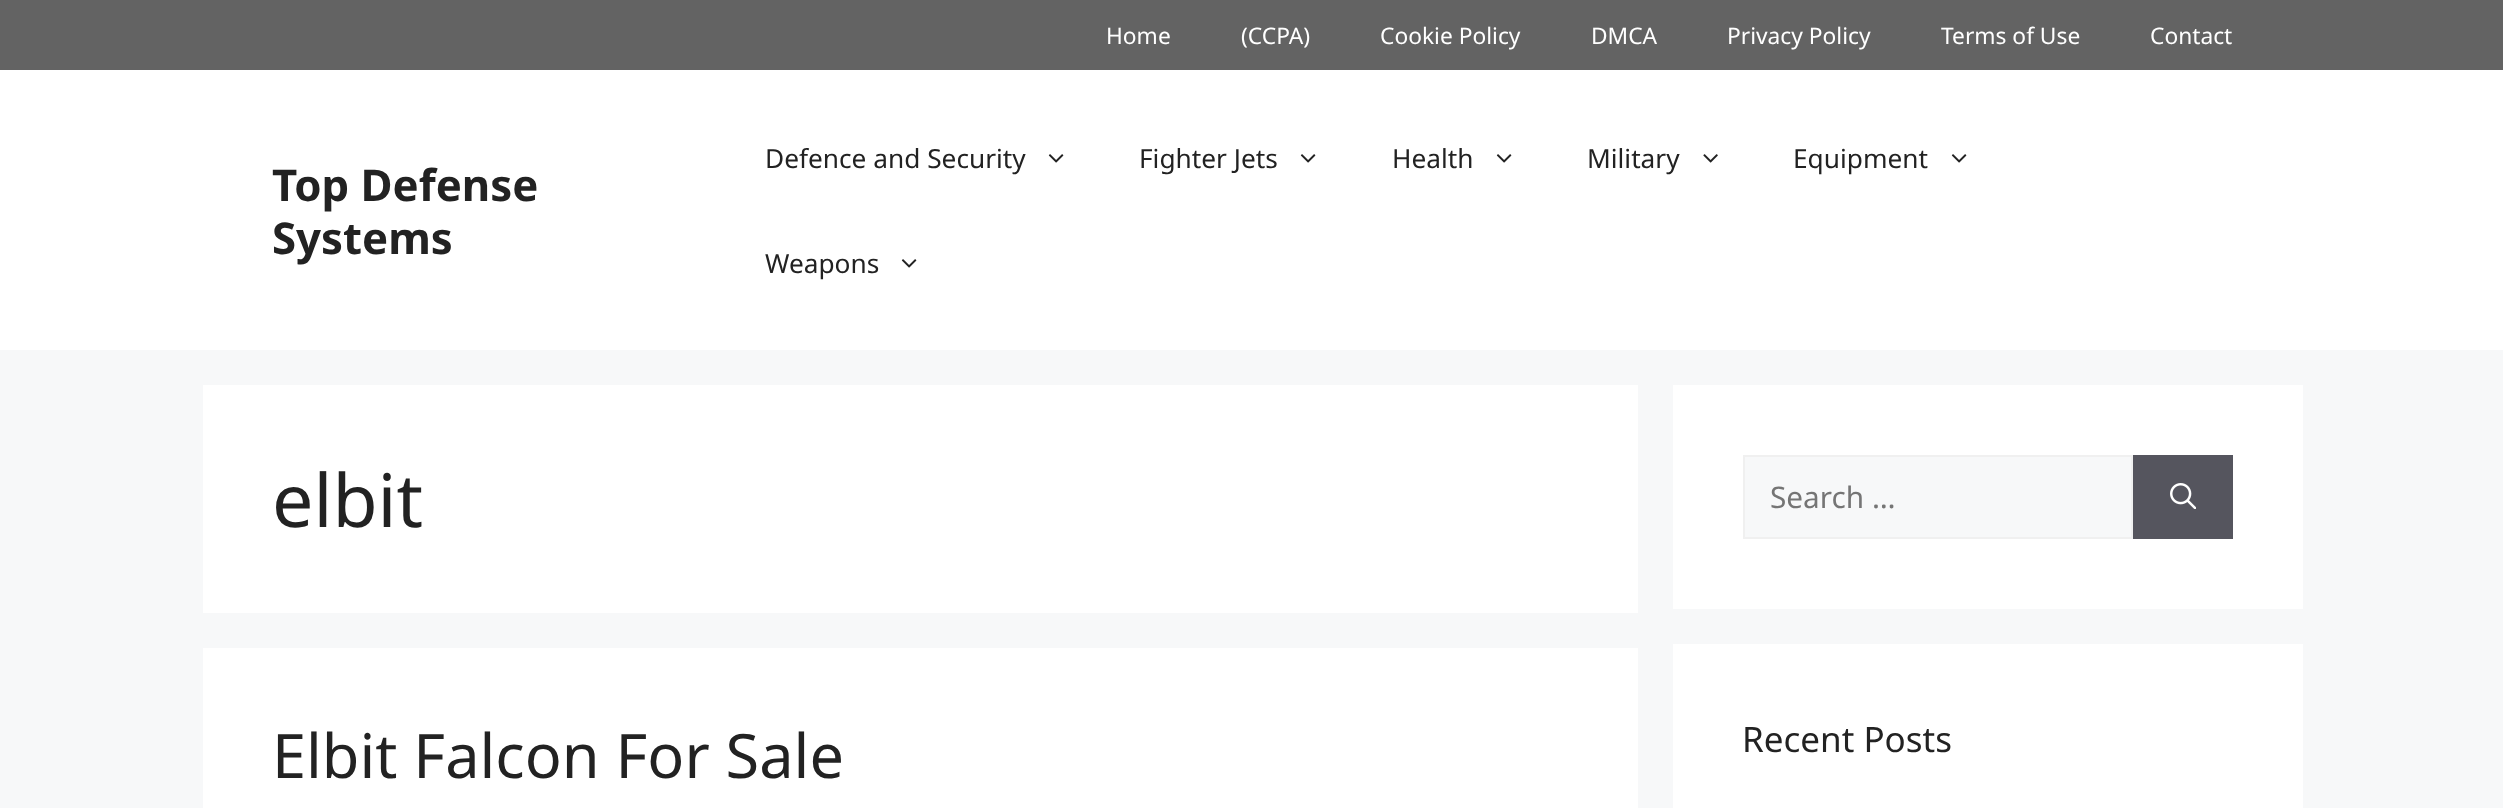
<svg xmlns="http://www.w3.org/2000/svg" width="2503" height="808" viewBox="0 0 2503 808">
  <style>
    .t1 { font: 22.75px Noto Sans; fill: #fff; }
    .t2 { font: bold 43.75px Noto Sans; fill: #222; }
    .t3 { font: 26.25px Noto Sans; fill: #222; }
    .t4 { font: 73.5px Noto Sans; fill: #222; }
    .t5 { font: 61.25px Noto Sans; fill: #222; }
    .t6 { font: 29.75px Noto Sans; fill: #757575; }
    .t7 { font: 35px Noto Sans; fill: #222; }
  </style>
  <rect width="100%" height="100%" fill="#f7f8f9"/>
  <rect x="0" y="0" width="2503" height="70" fill="#636363"/>
  <text x="1106" y="44" class="t1">Home</text>
  <text x="1241" y="44" class="t1">(CCPA)</text>
  <text x="1380" y="44" class="t1">Cookie Policy</text>
  <text x="1591" y="44" class="t1">DMCA</text>
  <text x="1727" y="44" class="t1">Privacy Policy</text>
  <text x="1941" y="44" class="t1">Terms of Use</text>
  <text x="2150" y="44" class="t1">Contact</text>
  <rect x="0" y="70" width="2503" height="280" fill="#fff"/>
  <text x="272" y="201" class="t2">Top Defense</text>
  <text x="272" y="254" class="t2">Systems</text>
  <text x="765" y="168" class="t3">Defence and Security</text>
  <image x="1048" y="154" width="16" height="9" href="images/1.png"/>
  <text x="1139" y="168" class="t3">Fighter Jets</text>
  <image x="1300" y="154" width="16" height="9" href="images/1.png"/>
  <text x="1392" y="168" class="t3">Health</text>
  <image x="1496" y="154" width="16" height="9" href="images/1.png"/>
  <text x="1587" y="168" class="t3">Military</text>
  <image x="1703" y="154" width="15" height="9" href="images/2.png"/>
  <text x="1793" y="168" class="t3">Equipment</text>
  <image x="1951" y="154" width="16" height="9" href="images/1.png"/>
  <text x="765" y="273" class="t3">Weapons</text>
  <image x="901" y="259" width="16" height="9" href="images/1.png"/>
  <rect x="203" y="385" width="1435" height="228" fill="#fff"/>
  <text x="272" y="527" class="t4">elbit</text>
  <rect x="203" y="648" width="1435" height="160" fill="#fff"/>
  <text x="272" y="778" class="t5">Elbit Falcon For Sale</text>
  <rect x="1673" y="385" width="630" height="224" fill="#fff"/>
  <rect x="1744" y="456" width="388" height="82" fill="#f7f8f9" stroke="#f0f0f0" stroke-width="2"/>
  <text x="1770" y="508" class="t6">Search …</text>
  <rect x="2133" y="455" width="100" height="84" fill="#55555e"/>
  <image x="2170" y="483" width="26" height="26" href="images/3.png"/>
  <rect x="1673" y="644" width="630" height="164" fill="#fff"/>
  <text x="1742" y="752" class="t7">Recent Posts</text>
</svg>
